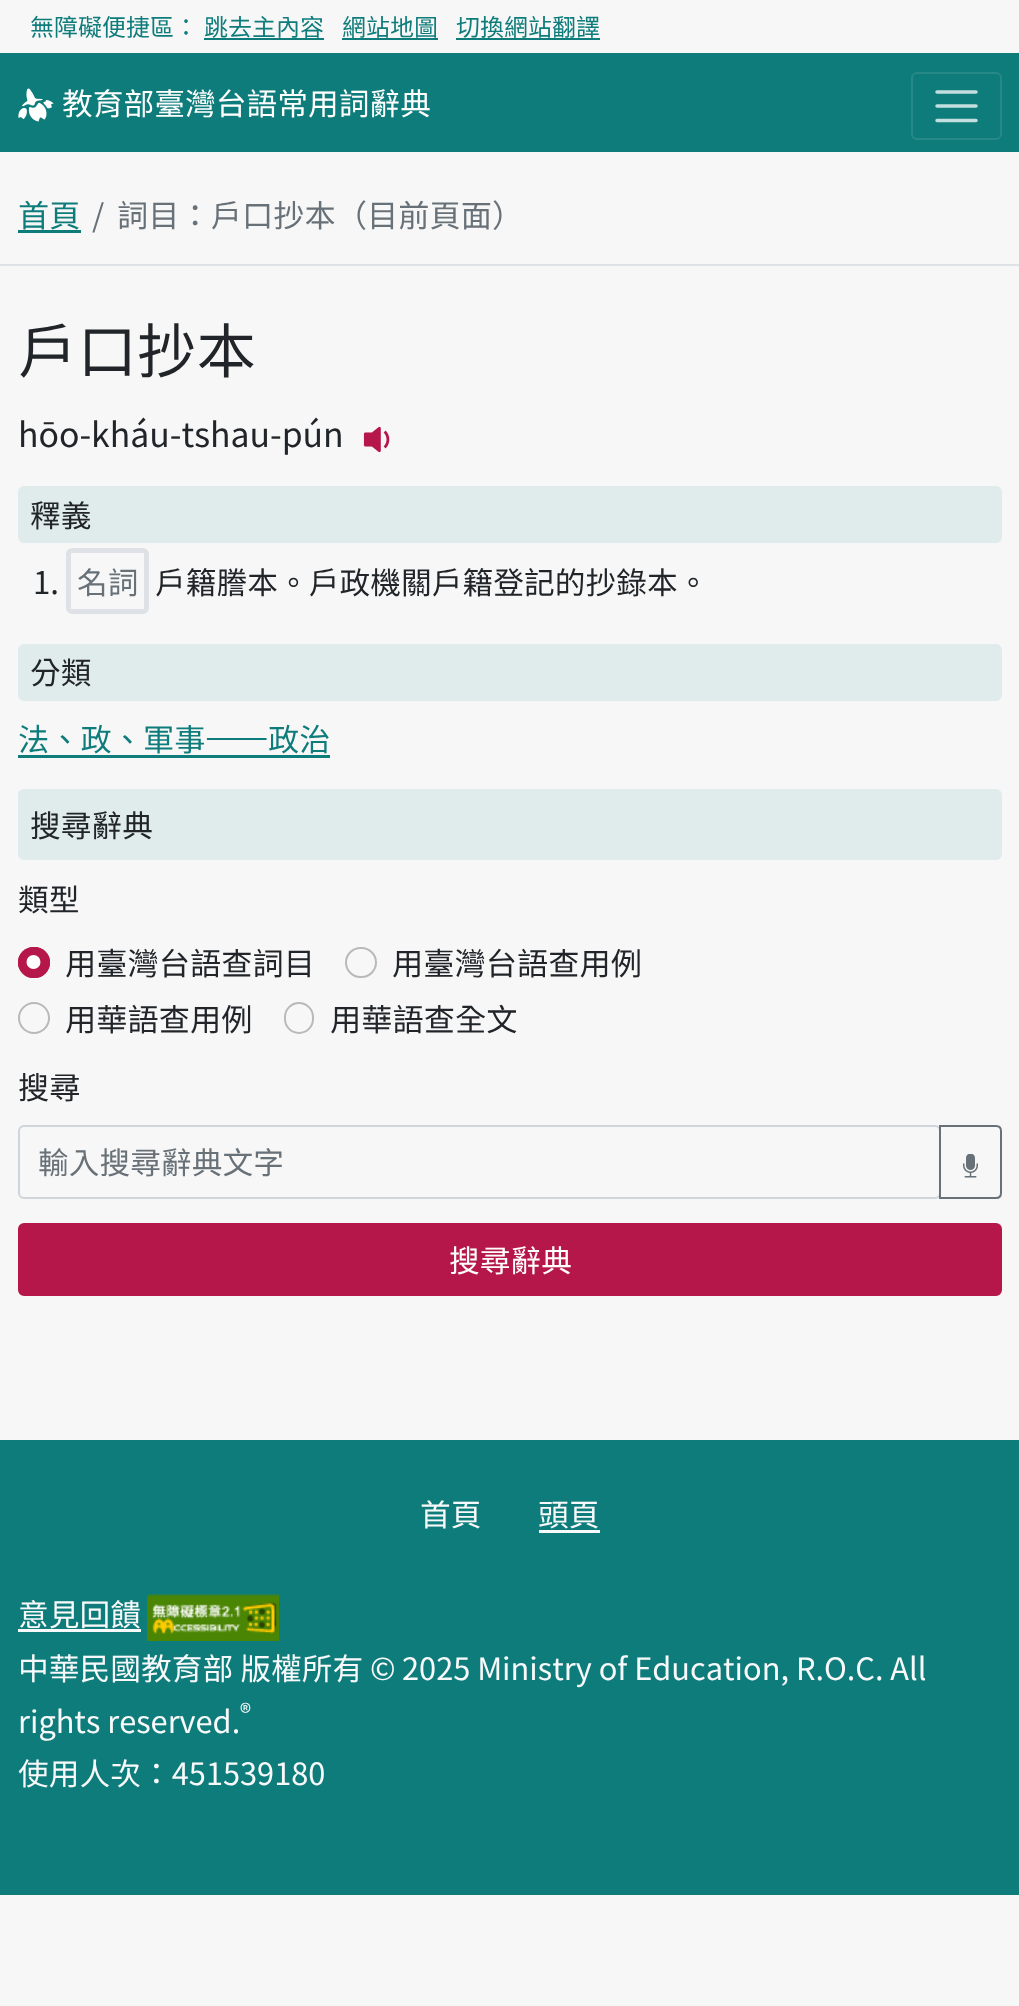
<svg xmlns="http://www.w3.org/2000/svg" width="1019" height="2006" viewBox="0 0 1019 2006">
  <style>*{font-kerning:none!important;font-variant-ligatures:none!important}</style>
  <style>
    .t1 { font: 24px 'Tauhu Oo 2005'; fill: #0e7c7b; }
    .t2 { font: 30.75px 'Tauhu Oo 2005'; fill: #fff; }
    .t3 { font: 31.25px 'Tauhu Oo 2005'; fill: #0e7c7b; }
    .t4 { font: 31.25px 'Tauhu Oo 2005'; fill: #687178; }
    .t5 { font: 59.5px 'Tauhu Oo 2005'; fill: #212529; }
    .t6 { font: 33.75px 'Tauhu Oo 2005'; fill: #212529; }
    .t7 { font: 30.75px 'Tauhu Oo 2005'; fill: #212529; }
    .t8 { font: 31.25px 'Tauhu Oo 2005'; fill: #212529; }
    .t9 { font: 30.75px 'Tauhu Oo 2005'; fill: #687178; }
    .t10 { font: 30.75px 'Tauhu Oo 2005'; fill: #f8f9fa; }
    .t11 { font: 30.75px Noto Sans TC; fill: #f8f9fa; }
    .t12 { font: 23px Noto Sans TC; fill: #f8f9fa; }
  </style>
  <rect width="100%" height="100%" fill="#f7f7f7"/>
  <text x="30" y="36" class="t1">無障礙便捷區：</text>
  <text x="204" y="36" class="t1">跳去主內容</text>
  <rect x="204" y="38" width="120" height="2" fill="#0e7c7b"/>
  <text x="342" y="36" class="t1">網站地圖</text>
  <rect x="342" y="38" width="96" height="2" fill="#0e7c7b"/>
  <text x="456" y="36" class="t1">切換網站翻譯</text>
  <rect x="456" y="38" width="144" height="2" fill="#0e7c7b"/>
  <rect x="0" y="53" width="1019" height="99" fill="#0e7c7b"/>
  <image x="18" y="88" width="36" height="34" href="images/1.png"/>
  <text x="62" y="115" class="t2">教育部臺灣台語常用詞辭典</text>
  <rect x="912" y="73" width="89" height="66" rx="5" fill="none" stroke="#268988" stroke-width="2"/>
  <path d="M937 92H976M937 106H976M937 120.5H976" fill="none" stroke="#c3dede" stroke-width="3.5" stroke-linecap="round"/>
  <rect x="0" y="264" width="1019" height="2" fill="#dee2e6"/>
  <text x="18" y="227" class="t3">首頁</text>
  <rect x="18" y="230" width="63" height="3" fill="#0e7c7b"/>
  <text x="92" y="227" class="t4">/</text>
  <text x="117" y="227" class="t4">詞目：戶口抄本（目前頁面）</text>
  <text x="18" y="373" class="t5">戶口抄本</text>
  <text x="18" y="447" class="t6">hōo-kháu-tshau-pún</text>
  <image x="363" y="426" width="27" height="27" href="images/2.png"/>
  <rect x="18" y="486" width="984" height="57" rx="6" fill="#e0ebeb"/>
  <text x="30" y="527" class="t7">釋義</text>
  <text x="33" y="594" class="t8">1.</text>
  <rect x="68.5" y="550.5" width="78" height="61" rx="3.5" fill="none" stroke="#dee2e6" stroke-width="5"/>
  <text x="77" y="594" class="t9">名詞</text>
  <text x="155" y="594" class="t7">戶籍謄本。戶政機關戶籍登記的抄錄本。</text>
  <rect x="18" y="644" width="984" height="57" rx="6" fill="#e0ebeb"/>
  <text x="30" y="684" class="t7">分類</text>
  <text x="18" y="751" class="t3">法、政、軍事——政治</text>
  <rect x="18" y="755" width="312" height="3" fill="#0e7c7b"/>
  <rect x="18" y="789" width="984" height="71" rx="6" fill="#e0ebeb"/>
  <text x="30" y="837" class="t7">搜尋辭典</text>
  <text x="18" y="911" class="t7">類型</text>
  <rect x="18" y="947" width="32" height="31" rx="15.5" fill="#b6174b"/>
  <circle cx="33.5" cy="962" r="7" fill="#fff"/>
  <rect x="19" y="948" width="30" height="29" rx="14.5" fill="none" stroke="#b6174b" stroke-width="2"/>
  <text x="65" y="975" class="t8">用臺灣台語查詞目</text>
  <rect x="346" y="948" width="30" height="29" rx="14.5" fill="none" stroke="#b9b9b9" stroke-width="2"/>
  <text x="392" y="975" class="t8">用臺灣台語查用例</text>
  <circle cx="34" cy="1018" r="15" fill="none" stroke="#b9b9b9" stroke-width="2"/>
  <text x="65" y="1031" class="t8">用華語查用例</text>
  <rect x="285" y="1003" width="28" height="30" rx="14" fill="none" stroke="#b9b9b9" stroke-width="2"/>
  <text x="330" y="1031" class="t8">用華語查全文</text>
  <text x="18" y="1099" class="t8">搜尋</text>
  <rect x="19" y="1126" width="921" height="72" rx="5" fill="none" stroke="#ced4da" stroke-width="2"/>
  <text x="38" y="1174" class="t9">輸入搜尋辭典文字</text>
  <path d="M940 1126H996C999 1126 1001 1128 1001 1131V1193C1001 1196 999 1198 996 1198H940Z" fill="none" stroke="#687178" stroke-width="2"/>
  <image x="963" y="1154" width="15" height="24" href="images/3.png"/>
  <rect x="19" y="1224" width="982" height="71" rx="5" fill="#b6174b" stroke="#b6174b" stroke-width="2"/>
  <text x="449" y="1272" class="t2">搜尋辭典</text>
  <rect x="0" y="1440" width="1019" height="455" fill="#0e7c7b"/>
  <text x="420" y="1526" class="t10">首頁</text>
  <text x="538" y="1526" class="t10">頭頁</text>
  <rect x="539" y="1530" width="61" height="3" fill="#f8f9fa"/>
  <text x="18" y="1626" class="t10">意見回饋</text>
  <rect x="18" y="1629" width="123" height="3" fill="#f8f9fa"/>
  <image x="147" y="1594" width="132" height="47" href="images/4.png"/>
  <text x="18" y="1680" class="t10">中華民國教育部 版權所有</text>
  <text x="370" y="1680" class="t11">©</text>
  <text x="402" y="1680" class="t10">2025 Ministry of Education, R.O.C. All</text>
  <text x="18" y="1733" class="t10">rights reserved.</text>
  <text x="240" y="1721" class="t12">®</text>
  <text x="18" y="1785" class="t10">使用人次：451539180</text>
</svg>
